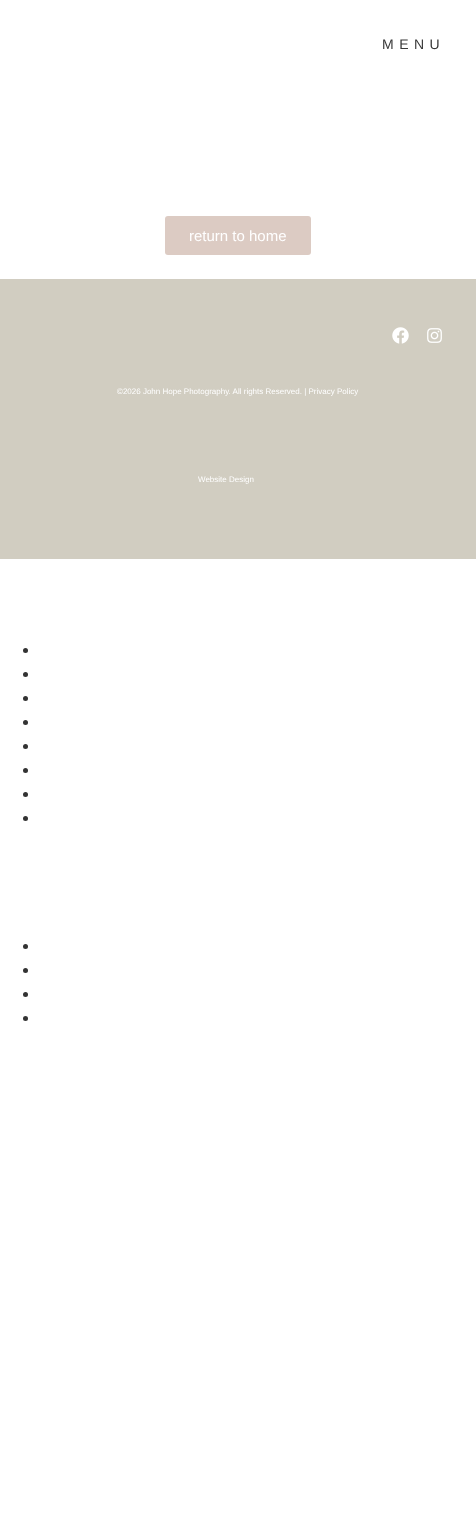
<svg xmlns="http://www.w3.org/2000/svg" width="476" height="1523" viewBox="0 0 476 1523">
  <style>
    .t1 { font: 14px Liberation Sans; letter-spacing: 5.5px; fill: #383838; }
    .t2 { font: 15px Liberation Sans; fill: #fff; }
    .t3 { font: 8px Liberation Sans; fill: #fff; }
  </style>
  <rect width="100%" height="100%" fill="#fff"/>
  <text x="382" y="49" class="t1">MENU</text>
  <rect x="165" y="216" width="146" height="39" rx="3" fill="#dccbc3"/>
  <text x="189" y="241" class="t2">return to home</text>
  <rect x="0" y="279" width="476" height="280" fill="#d1cdc1"/>
  <image x="392" y="327" width="17" height="17" href="images/1.png"/>
  <image x="427" y="328" width="15" height="15" href="images/2.png"/>
  <text x="117" y="394" class="t3">©2026 John Hope Photography. All rights Reserved. | Privacy Policy</text>
  <text x="198" y="482" class="t3">Website Design</text>
  <circle cx="25.5" cy="650.5" r="2.5" fill="#333"/>
  <circle cx="25.5" cy="674.5" r="2.5" fill="#333"/>
  <circle cx="25.5" cy="698.5" r="2.5" fill="#333"/>
  <circle cx="25.5" cy="722.5" r="2.5" fill="#333"/>
  <circle cx="25.5" cy="746.5" r="2.5" fill="#333"/>
  <circle cx="25.5" cy="770.5" r="2.5" fill="#333"/>
  <circle cx="25.5" cy="794.5" r="2.5" fill="#333"/>
  <circle cx="25.5" cy="818.5" r="2.5" fill="#333"/>
  <circle cx="25.5" cy="946.5" r="2.5" fill="#333"/>
  <circle cx="25.5" cy="970.5" r="2.5" fill="#333"/>
  <circle cx="25.5" cy="994.5" r="2.5" fill="#333"/>
  <circle cx="25.5" cy="1018.5" r="2.5" fill="#333"/>
</svg>
